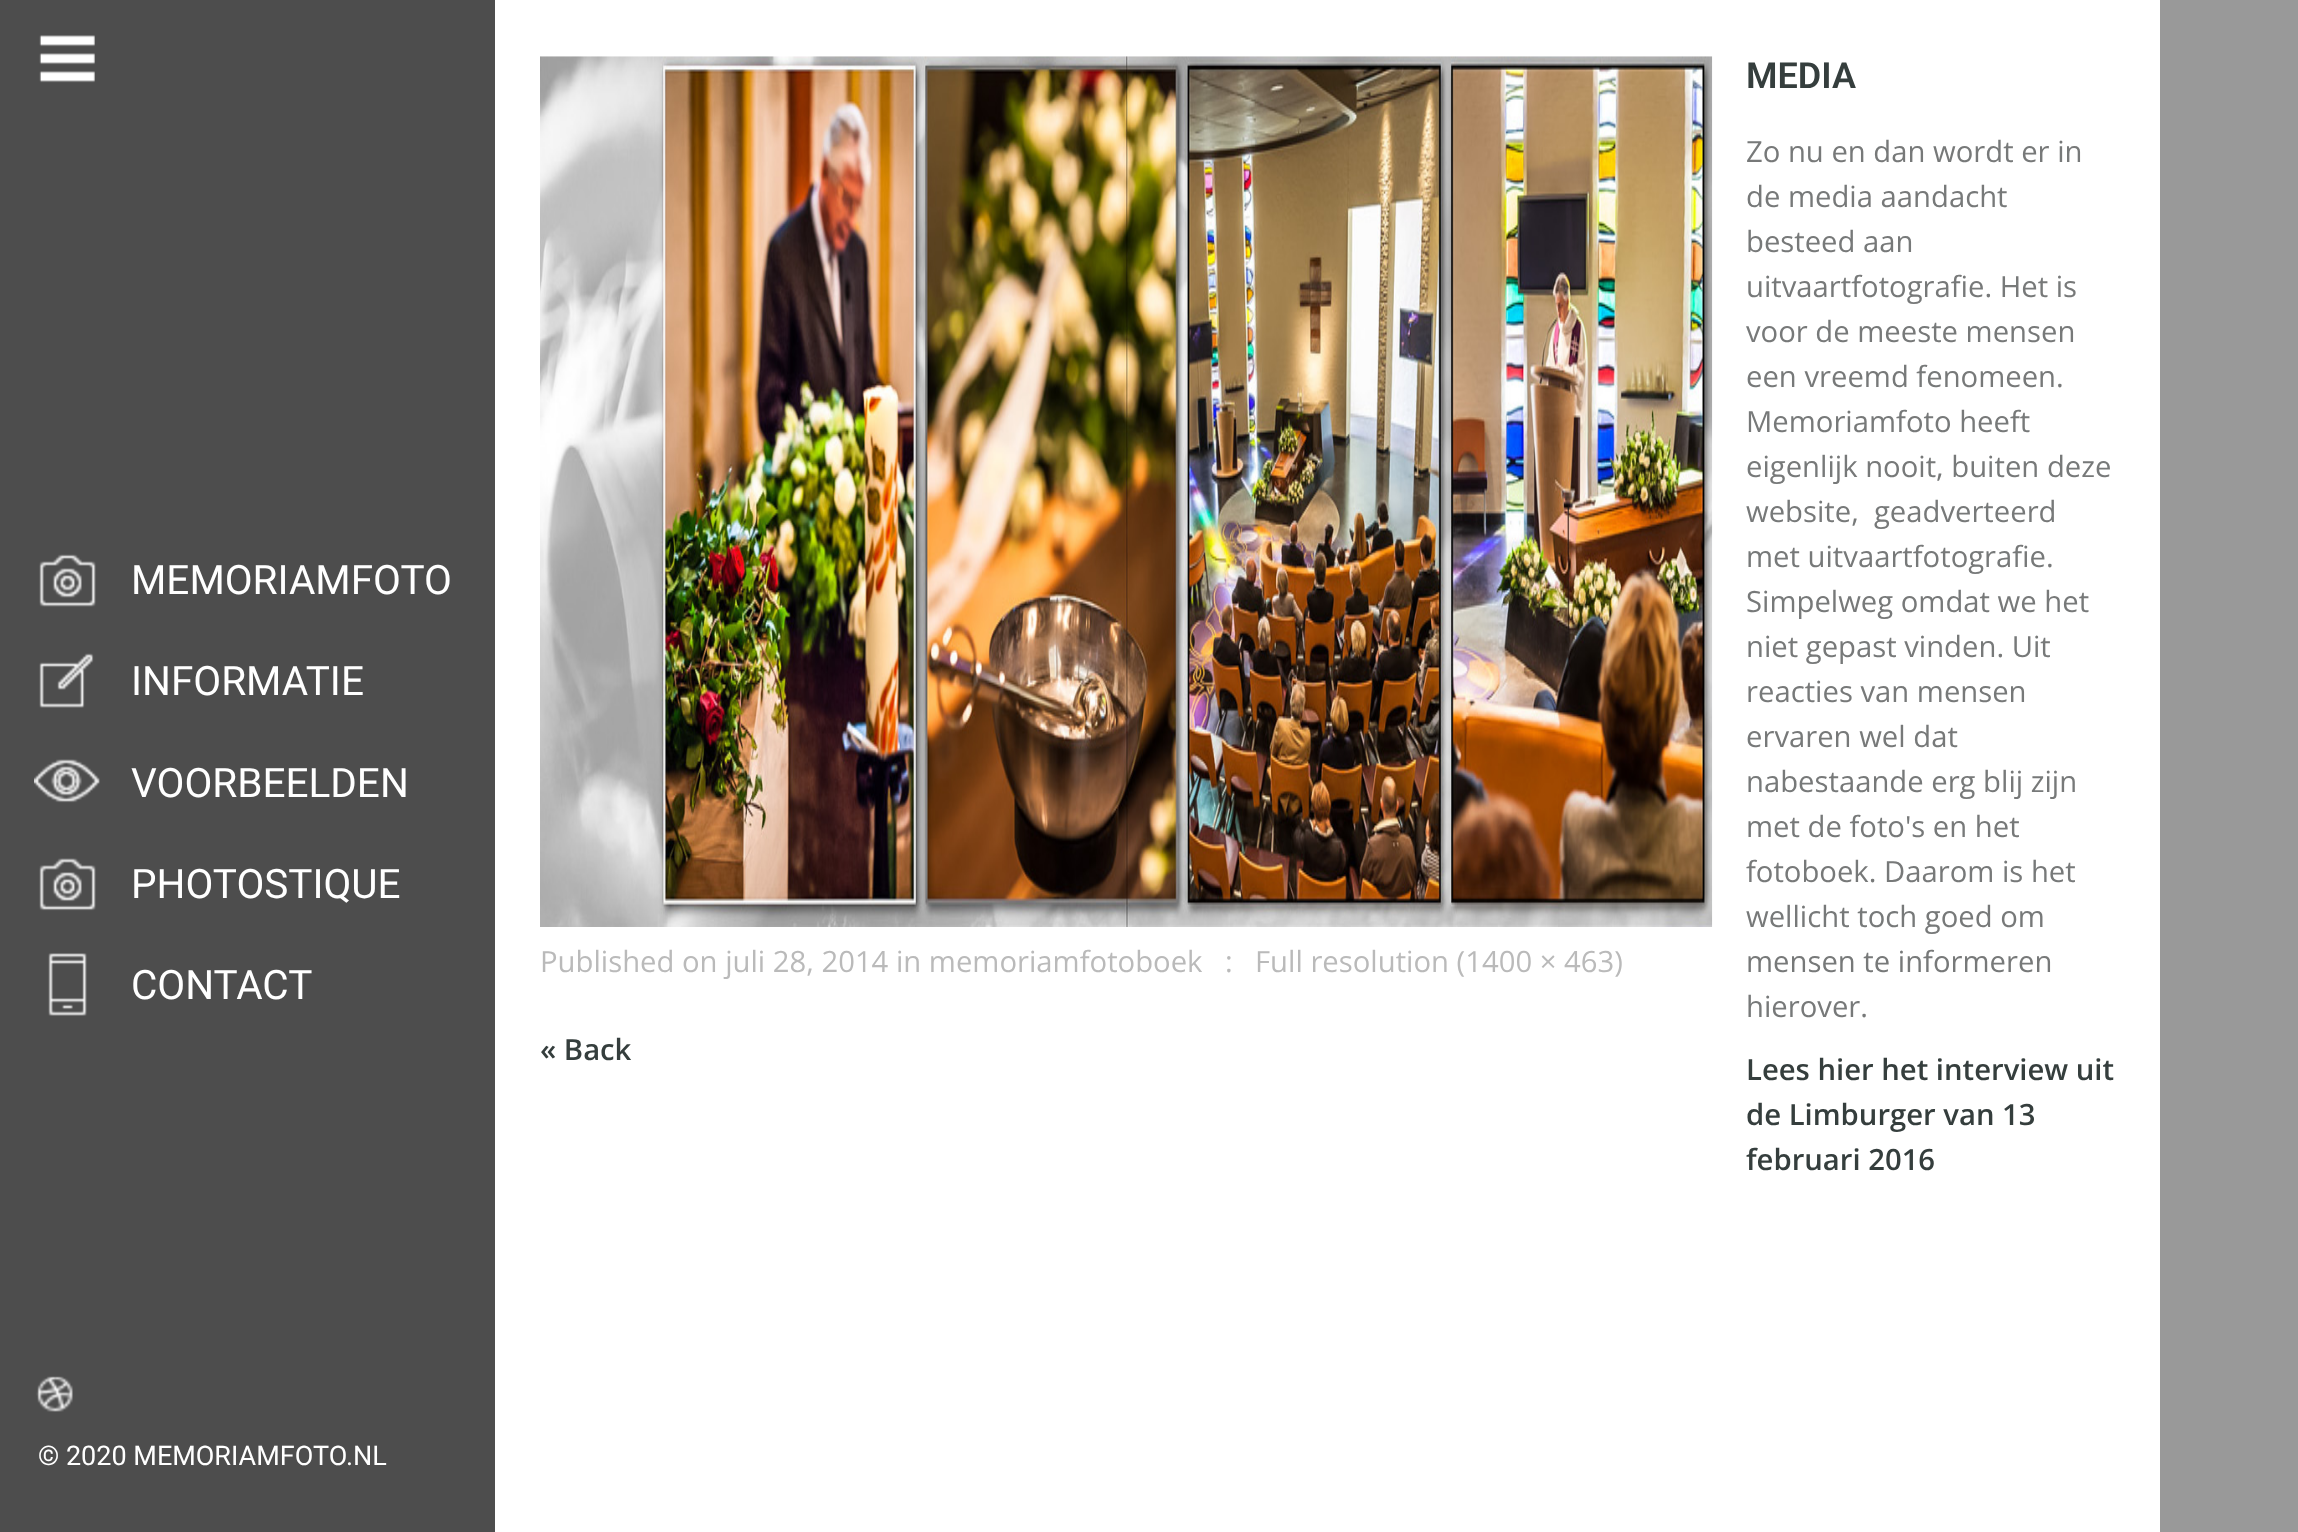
<svg xmlns="http://www.w3.org/2000/svg" width="2298" height="1532" viewBox="0 0 2298 1532">
  <style>
    .t1 { font: 40.5px Roboto; fill: #fff; }
    .t2 { font: 27px Roboto; fill: #fff; }
    .t3 { font: 29.25px Open Sans; fill: #bababa; }
    .t4 { font: 600 29.25px Open Sans; fill: #353e3d; }
    .t5 { font: 600 36px Roboto; fill: #353e3d; }
    .t6 { font: 29.25px Open Sans; fill: #777979; }
  </style>
  <rect width="100%" height="100%" fill="#999"/>
  <rect x="0" y="0" width="495" height="1532" fill="#4d4d4d"/>
  <image x="39" y="35" width="56" height="48" href="images/1.png"/>
  <image x="39" y="554" width="57" height="53" href="images/2.png"/>
  <text x="131" y="594" class="t1">MEMORIAMFOTO</text>
  <image x="39" y="653" width="55" height="55" href="images/3.png"/>
  <text x="131" y="695" class="t1">INFORMATIE</text>
  <image x="34" y="759" width="66" height="44" href="images/4.png"/>
  <text x="131" y="797" class="t1">VOORBEELDEN</text>
  <image x="39" y="858" width="57" height="53" href="images/5.png"/>
  <text x="131" y="898" class="t1">PHOTOSTIQUE</text>
  <image x="48" y="953" width="39" height="63" href="images/6.png"/>
  <text x="131" y="999" class="t1">CONTACT</text>
  <image x="36" y="1376" width="37" height="36" href="images/7.png"/>
  <text x="38" y="1465" class="t2">© 2020 MEMORIAMFOTO.NL</text>
  <rect x="495" y="0" width="1665" height="1532" fill="#fff"/>
  <image x="540" y="56" width="1173" height="871" href="images/8.png"/>
  <text x="540" y="972" class="t3">Published on juli 28, 2014 in memoriamfotoboek</text>
  <text x="1225" y="972" class="t3">:</text>
  <text x="1255" y="972" class="t3">Full resolution (1400 × 463)</text>
  <text x="540" y="1060" class="t4">« Back</text>
  <text x="1746" y="88" class="t5">MEDIA</text>
  <text x="1746" y="162" class="t6">Zo nu en dan wordt er in</text>
  <text x="1746" y="207" class="t6">de media aandacht</text>
  <text x="1746" y="252" class="t6">besteed aan</text>
  <text x="1746" y="297" class="t6">uitvaartfotografie. Het is</text>
  <text x="1746" y="342" class="t6">voor de meeste mensen</text>
  <text x="1746" y="387" class="t6">een vreemd fenomeen.</text>
  <text x="1746" y="432" class="t6">Memoriamfoto heeft</text>
  <text x="1746" y="477" class="t6">eigenlijk nooit, buiten deze</text>
  <text x="1746" y="522" class="t6" xml:space="preserve">website,  geadverteerd</text>
  <text x="1746" y="567" class="t6">met uitvaartfotografie.</text>
  <text x="1746" y="612" class="t6">Simpelweg omdat we het</text>
  <text x="1746" y="657" class="t6">niet gepast vinden. Uit</text>
  <text x="1746" y="702" class="t6">reacties van mensen</text>
  <text x="1746" y="747" class="t6">ervaren wel dat</text>
  <text x="1746" y="792" class="t6">nabestaande erg blij zijn</text>
  <text x="1746" y="837" class="t6">met de foto's en het</text>
  <text x="1746" y="882" class="t6">fotoboek. Daarom is het</text>
  <text x="1746" y="927" class="t6">wellicht toch goed om</text>
  <text x="1746" y="972" class="t6">mensen te informeren</text>
  <text x="1746" y="1017" class="t6">hierover.</text>
  <text x="1746" y="1080" class="t4">Lees hier het interview uit</text>
  <text x="1746" y="1125" class="t4">de Limburger van 13</text>
  <text x="1746" y="1170" class="t4">februari 2016</text>
</svg>
